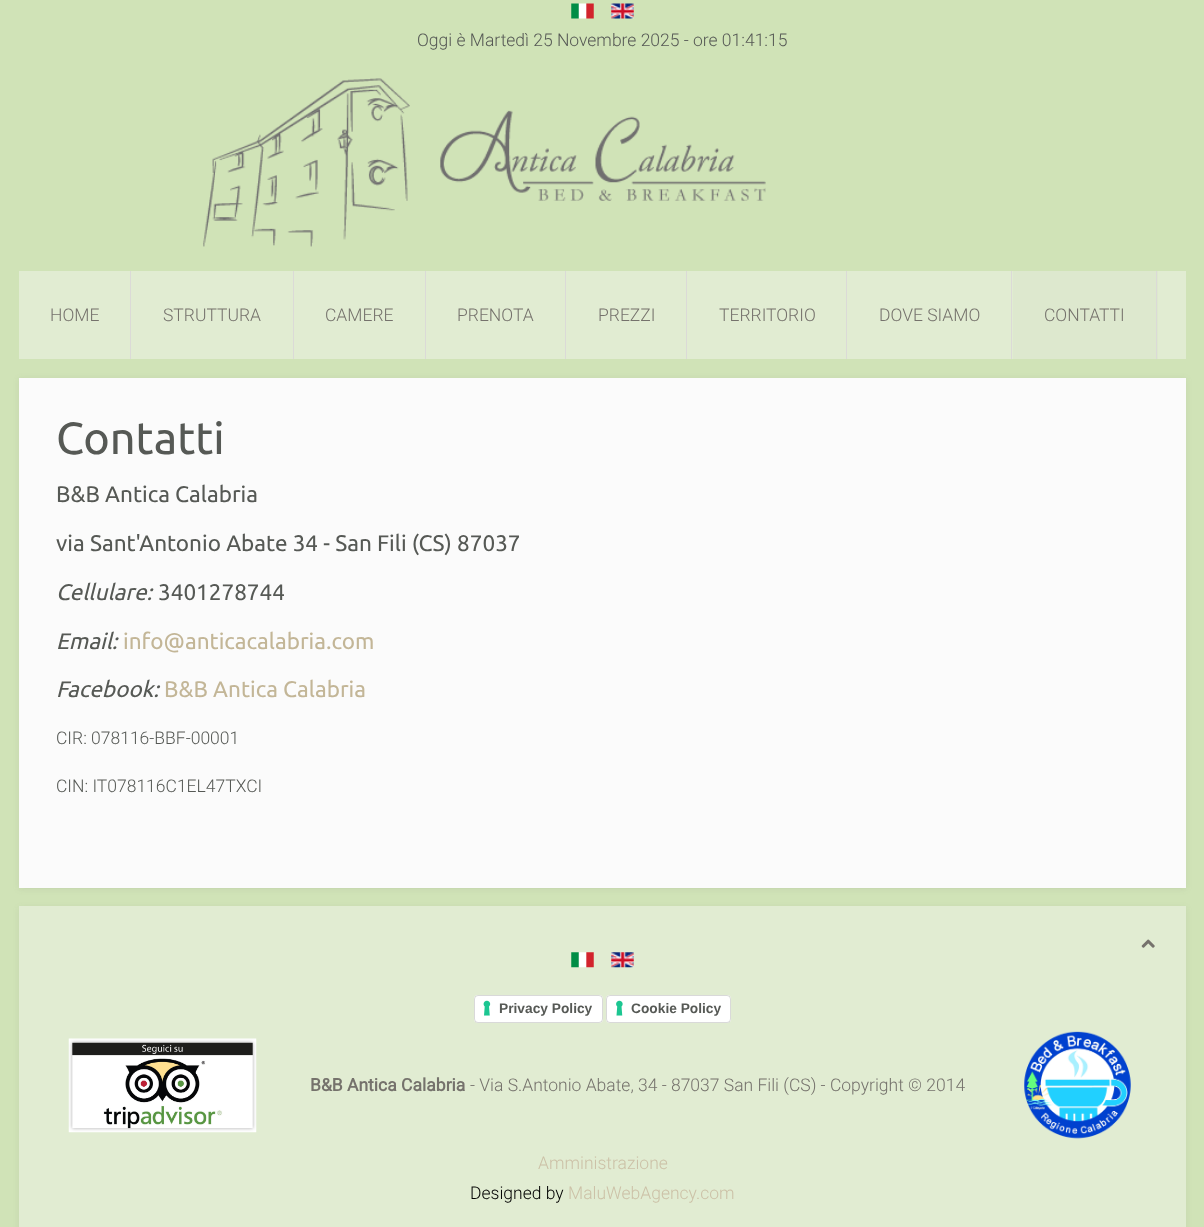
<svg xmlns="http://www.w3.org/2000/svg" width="1204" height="1227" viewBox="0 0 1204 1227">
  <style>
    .t1 { font: 300 17.5px Roboto; fill: #565955; }
    .t2 { font: 300 17.5px Roboto; fill: #75726c; }
    .t3 { font: 45px Ubuntu; fill: #565955; }
    .t4 { font: 22.5px Ubuntu; fill: #565955; }
    .t5 { font: italic 22.5px Ubuntu; fill: #565955; }
    .t6 { font: 22.5px Ubuntu; fill: #c3b697; }
    .t7 { font: bold 13.75px Liberation Sans; fill: #565955; }
    .t8 { font: bold 17.5px Roboto; fill: #75726c; }
    .t9 { font: 300 17.5px Roboto; fill: #ccc1a7; }
    .t10 { font: 300 17.5px Roboto; fill: #000; }
  </style>
  <rect width="100%" height="100%" fill="#d0e3b7"/>
  <image x="571" y="3" width="23" height="16" href="images/1.png"/>
  <image x="611" y="3" width="23" height="16" href="images/2.png"/>
  <text x="417" y="46" class="t1">Oggi è Martedì 25 Novembre 2025 - ore 01:41:15</text>
  <image x="203" y="78" width="563" height="169" href="images/3.png"/>
  <rect x="19" y="271" width="1167" height="88" fill="#fafafa66"/>
  <rect x="130" y="271" width="1" height="88" fill="#dbdad7"/>
  <text x="50" y="321" class="t2">HOME</text>
  <rect x="293" y="271" width="1" height="88" fill="#dbdad7"/>
  <text x="163" y="321" class="t2">STRUTTURA</text>
  <rect x="425" y="271" width="1" height="88" fill="#dbdad7"/>
  <text x="325" y="321" class="t2">CAMERE</text>
  <rect x="565" y="271" width="1" height="88" fill="#dbdad7"/>
  <text x="457" y="321" class="t2">PRENOTA</text>
  <rect x="686" y="271" width="1" height="88" fill="#dbdad7"/>
  <text x="598" y="321" class="t2">PREZZI</text>
  <rect x="846" y="271" width="1" height="88" fill="#dbdad7"/>
  <text x="719" y="321" class="t2">TERRITORIO</text>
  <rect x="1011" y="271" width="1" height="88" fill="#dbdad7"/>
  <text x="879" y="321" class="t2">DOVE SIAMO</text>
  <rect x="1013" y="271" width="145" height="88" fill="#dde8ce"/>
  <rect x="1156" y="271" width="1" height="88" fill="#dbdad7"/>
  <text x="1044" y="321" class="t2">CONTATTI</text>
  <rect x="19" y="379" width="1167" height="510" fill="#5050501a" filter="blur(3px)"/>
  <rect x="19" y="378" width="1167" height="510" fill="#fbfbfb"/>
  <text x="56" y="454" class="t3">Contatti</text>
  <text x="56" y="502" class="t4">B&amp;B Antica Calabria</text>
  <text x="56" y="551" class="t4">via Sant'Antonio Abate 34 - San Fili (CS) 87037</text>
  <text x="56" y="600" class="t5">Cellulare:</text>
  <text x="158" y="600" class="t4">3401278744</text>
  <text x="56" y="649" class="t5">Email:</text>
  <text x="123" y="649" class="t6">info@anticacalabria.com</text>
  <text x="56" y="697" class="t5">Facebook:</text>
  <text x="164" y="697" class="t6">B&amp;B Antica Calabria</text>
  <text x="56" y="744" class="t1">CIR: 078116-BBF-00001</text>
  <text x="56" y="792" class="t1">CIN: IT078116C1EL47TXCI</text>
  <rect x="19" y="908" width="1167" height="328" fill="#5050501a" filter="blur(3px)"/>
  <rect x="19" y="906" width="1167" height="321" fill="#e1ecd2"/>
  <image x="1141" y="939" width="14" height="9" href="images/4.png"/>
  <image x="571" y="952" width="23" height="16" href="images/5.png"/>
  <image x="611" y="952" width="23" height="16" href="images/6.png"/>
  <rect x="475" y="998" width="126" height="25" rx="2.5" fill="#00000026" filter="blur(0.5px)"/>
  <rect x="474" y="995" width="129" height="28" rx="4" fill="#fff"/>
  <image x="483" y="1000" width="8" height="16" href="images/7.png"/>
  <rect x="474.5" y="995.5" width="128" height="27" rx="3.5" fill="none" stroke="#00000026"/>
  <text x="499" y="1013" class="t7">Privacy Policy</text>
  <rect x="608" y="998" width="122" height="25" rx="2.5" fill="#00000026" filter="blur(0.5px)"/>
  <rect x="606" y="995" width="125" height="28" rx="4" fill="#fff"/>
  <image x="616" y="1000" width="7" height="16" href="images/8.png"/>
  <rect x="606.5" y="995.5" width="124" height="27" rx="3.5" fill="none" stroke="#00000026"/>
  <text x="631" y="1013" class="t7">Cookie Policy</text>
  <image x="68" y="1038" width="189" height="95" href="images/9.png"/>
  <text x="310" y="1091" class="t8">B&amp;B Antica Calabria</text>
  <text x="470" y="1091" class="t2">- Via S.Antonio Abate, 34 - 87037 San Fili (CS) - Copyright © 2014</text>
  <image x="1024" y="1031" width="107" height="108" href="images/10.png"/>
  <text x="538" y="1169" class="t9">Amministrazione</text>
  <text x="470" y="1199" class="t10">Designed by</text>
  <text x="568" y="1199" class="t9">MaluWebAgency.com</text>
</svg>
